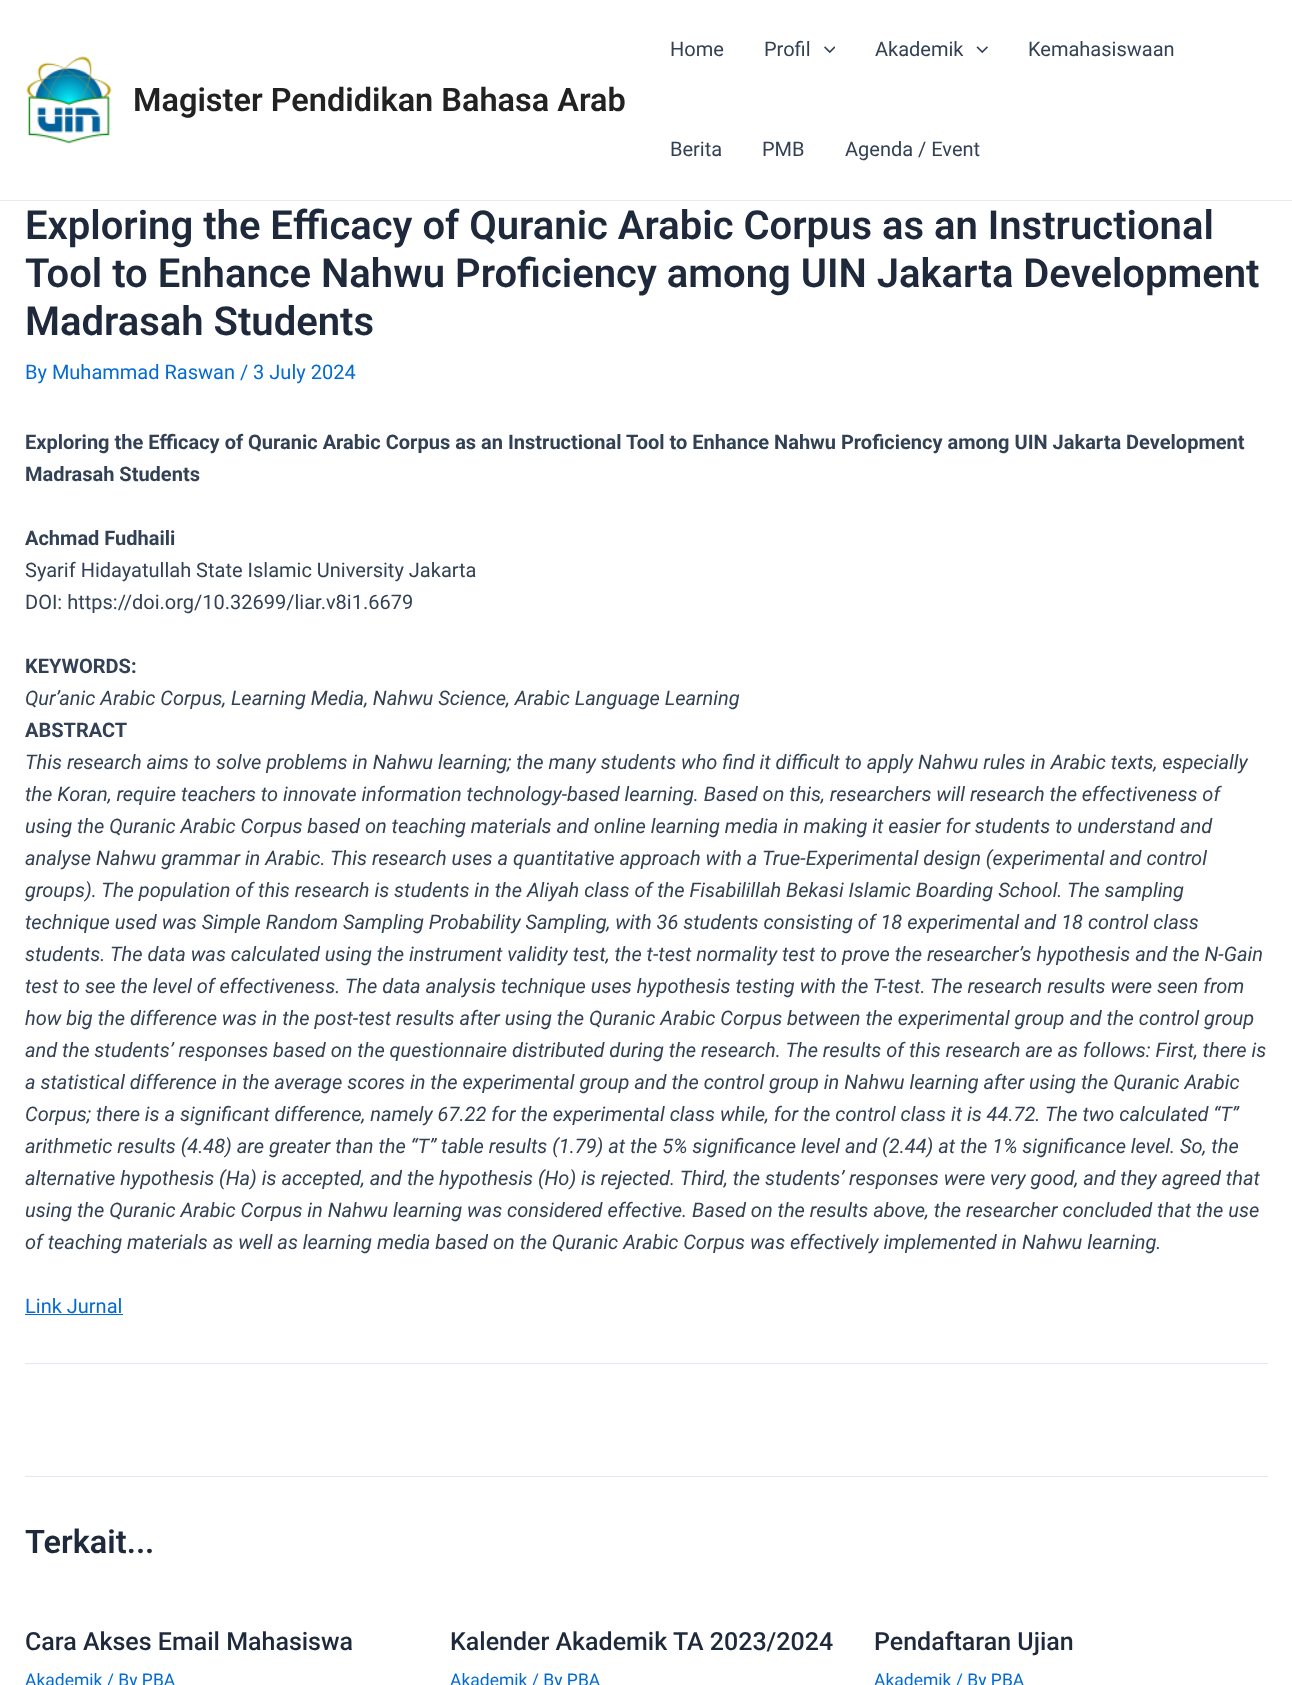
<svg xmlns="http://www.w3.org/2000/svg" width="1292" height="1685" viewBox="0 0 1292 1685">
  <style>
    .t1 { font: 600 32.5px Roboto; fill: #222; }
    .t2 { font: 20px Roboto; fill: #334155; }
    .t3 { font: 600 40px Roboto; fill: #1e293b; }
    .t4 { font: 20px Roboto; fill: #046bd2; }
    .t5 { font: bold 20px Roboto; fill: #334155; }
    .t6 { font: italic 20px Roboto; fill: #334155; }
    .t7 { font: 600 32.5px Roboto; fill: #1e293b; }
    .t8 { font: 500 25px Roboto; fill: #1e293b; }
    .t9 { font: 17.5px Roboto; fill: #046bd2; }
  </style>
  <rect width="100%" height="100%" fill="#fff"/>
  <rect x="0" y="200" width="1292" height="1" fill="#eaeaea"/>
  <image x="26" y="56" width="86" height="88" href="images/1.png"/>
  <text x="133" y="111" class="t1">Magister Pendidikan Bahasa Arab</text>
  <text x="670" y="56" class="t2">Home</text>
  <text x="764" y="56" class="t2">Profil</text>
  <image x="824" y="46" width="11" height="8" href="images/2.png"/>
  <text x="875" y="56" class="t2">Akademik</text>
  <image x="976" y="46" width="12" height="8" href="images/3.png"/>
  <text x="1028" y="56" class="t2">Kemahasiswaan</text>
  <text x="670" y="156" class="t2">Berita</text>
  <text x="762" y="156" class="t2">PMB</text>
  <text x="845" y="156" class="t2">Agenda / Event</text>
  <text x="25" y="239" class="t3">Exploring the Efficacy of Quranic Arabic Corpus as an Instructional</text>
  <text x="25" y="287" class="t3">Tool to Enhance Nahwu Proficiency among UIN Jakarta Development</text>
  <text x="25" y="335" class="t3">Madrasah Students</text>
  <text x="25" y="379" class="t4">By Muhammad Raswan / 3 July 2024</text>
  <text x="25" y="449" class="t5">Exploring the Efficacy of Quranic Arabic Corpus as an Instructional Tool to Enhance Nahwu Proficiency among UIN Jakarta Development</text>
  <text x="25" y="481" class="t5">Madrasah Students</text>
  <text x="25" y="545" class="t5">Achmad Fudhaili</text>
  <text x="25" y="577" class="t2">Syarif Hidayatullah State Islamic University Jakarta</text>
  <text x="25" y="609" class="t2">DOI: https://doi.org/10.32699/liar.v8i1.6679</text>
  <text x="25" y="673" class="t5">KEYWORDS:</text>
  <text x="25" y="705" class="t6">Qur’anic Arabic Corpus, Learning Media, Nahwu Science, Arabic Language Learning</text>
  <text x="25" y="737" class="t5">ABSTRACT</text>
  <text x="25" y="769" class="t6">This research aims to solve problems in Nahwu learning; the many students who find it difficult to apply Nahwu rules in Arabic texts, especially</text>
  <text x="25" y="801" class="t6">the Koran, require teachers to innovate information technology-based learning. Based on this, researchers will research the effectiveness of</text>
  <text x="25" y="833" class="t6">using the Quranic Arabic Corpus based on teaching materials and online learning media in making it easier for students to understand and</text>
  <text x="25" y="865" class="t6">analyse Nahwu grammar in Arabic. This research uses a quantitative approach with a True-Experimental design (experimental and control</text>
  <text x="25" y="897" class="t6">groups). The population of this research is students in the Aliyah class of the Fisabilillah Bekasi Islamic Boarding School. The sampling</text>
  <text x="25" y="929" class="t6">technique used was Simple Random Sampling Probability Sampling, with 36 students consisting of 18 experimental and 18 control class</text>
  <text x="25" y="961" class="t6">students. The data was calculated using the instrument validity test, the t-test normality test to prove the researcher’s hypothesis and the N-Gain</text>
  <text x="25" y="993" class="t6">test to see the level of effectiveness. The data analysis technique uses hypothesis testing with the T-test. The research results were seen from</text>
  <text x="25" y="1025" class="t6">how big the difference was in the post-test results after using the Quranic Arabic Corpus between the experimental group and the control group</text>
  <text x="25" y="1057" class="t6">and the students’ responses based on the questionnaire distributed during the research. The results of this research are as follows: First, there is</text>
  <text x="25" y="1089" class="t6">a statistical difference in the average scores in the experimental group and the control group in Nahwu learning after using the Quranic Arabic</text>
  <text x="25" y="1121" class="t6">Corpus; there is a significant difference, namely 67.22 for the experimental class while, for the control class it is 44.72. The two calculated “T”</text>
  <text x="25" y="1153" class="t6">arithmetic results (4.48) are greater than the “T” table results (1.79) at the 5% significance level and (2.44) at the 1% significance level. So, the</text>
  <text x="25" y="1185" class="t6">alternative hypothesis (Ha) is accepted, and the hypothesis (Ho) is rejected. Third, the students’ responses were very good, and they agreed that</text>
  <text x="25" y="1217" class="t6">using the Quranic Arabic Corpus in Nahwu learning was considered effective. Based on the results above, the researcher concluded that the use</text>
  <text x="25" y="1249" class="t6">of teaching materials as well as learning media based on the Quranic Arabic Corpus was effectively implemented in Nahwu learning.</text>
  <text x="25" y="1313" class="t4">Link Jurnal</text>
  <rect x="25" y="1314" width="98" height="1" fill="#046bd2"/>
  <rect x="25" y="1363" width="1243" height="1" fill="#e2e8f0"/>
  <rect x="25" y="1476" width="1243" height="1" fill="#e2e8f0"/>
  <text x="25" y="1553" class="t7">Terkait...</text>
  <text x="25" y="1650" class="t8">Cara Akses Email Mahasiswa</text>
  <text x="25" y="1686" class="t9">Akademik / By PBA</text>
  <text x="450" y="1650" class="t8">Kalender Akademik TA 2023/2024</text>
  <text x="450" y="1686" class="t9">Akademik / By PBA</text>
  <text x="874" y="1650" class="t8">Pendaftaran Ujian</text>
  <text x="874" y="1686" class="t9">Akademik / By PBA</text>
</svg>
